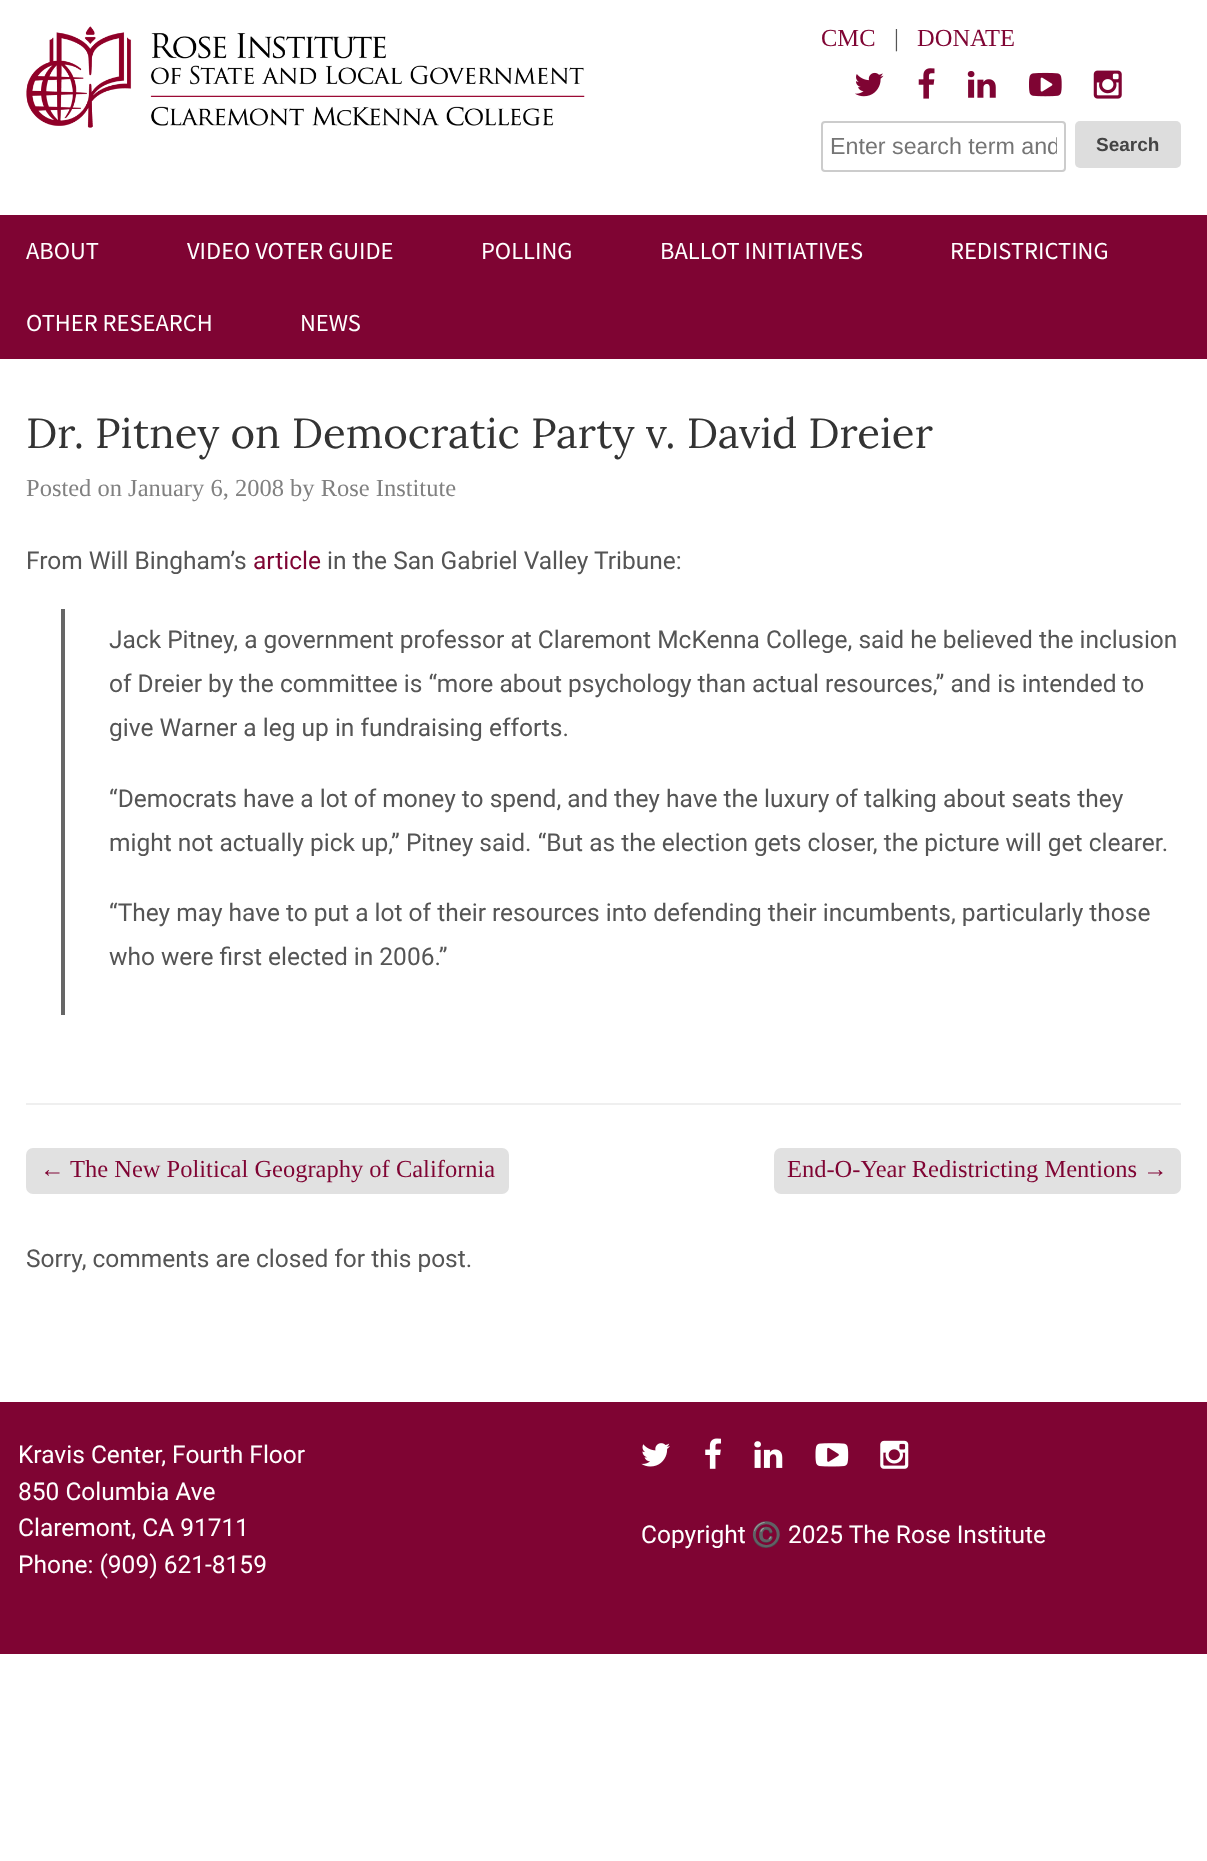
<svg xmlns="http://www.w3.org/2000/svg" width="1207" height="1861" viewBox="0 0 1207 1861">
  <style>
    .t1 { font: 24.5px Liberation Serif; fill: #7f0433; }
    .t2 { font: 24.5px Liberation Serif; fill: #555; }
    .t3 { font: 23.25px Liberation Sans; fill: #757575; }
    .t4 { font: bold 19px Liberation Sans; fill: #444; }
    .t5 { font: 24.5px Source Sans Pro; fill: #fff; }
    .t6 { font: 42px Lora; fill: #333; }
    .t7 { font: 24.5px Liberation Serif; fill: #818181; }
    .t8 { font: 24.5px Roboto; fill: #555; }
    .t9 { font: 24.5px Roboto; fill: #7f0433; }
    .t10 { font: 24.5px Roboto; fill: #fff; }
    .t11 { font: 24.5px Noto Color Emoji; fill: #fff; }
  </style>
  <defs>
    <clipPath id="clip1"><rect x="830" y="133" width="227" height="26"/></clipPath>
  </defs>
  <rect width="100%" height="100%" fill="#fff"/>
  <image x="26" y="26" width="559" height="102" href="images/1.png"/>
  <text x="821" y="46" class="t1">CMC</text>
  <text x="894" y="46" class="t2">|</text>
  <text x="917" y="46" class="t1">DONATE</text>
  <image x="855" y="72" width="29" height="25" href="images/2.png"/>
  <image x="918" y="68" width="17" height="31" href="images/3.png"/>
  <image x="967" y="71" width="29" height="27" href="images/4.png"/>
  <image x="1029" y="72" width="33" height="25" href="images/5.png"/>
  <image x="1093" y="70" width="29" height="29" href="images/6.png"/>
  <rect x="822" y="122" width="243" height="49" rx="3" fill="none" stroke="#ccc" stroke-width="2"/>
  <g clip-path="url(#clip1)">
    <text x="830" y="154" class="t3">Enter search term and</text>
  </g>
  <rect x="1075" y="121" width="106" height="47" rx="5" fill="#ddd"/>
  <text x="1096" y="151" class="t4">Search</text>
  <rect x="0" y="215" width="1207" height="144" fill="#7f0433"/>
  <text x="26" y="259" class="t5">ABOUT</text>
  <text x="187" y="259" class="t5">VIDEO VOTER GUIDE</text>
  <text x="481" y="259" class="t5">POLLING</text>
  <text x="660" y="259" class="t5">BALLOT INITIATIVES</text>
  <text x="950" y="259" class="t5">REDISTRICTING</text>
  <text x="26" y="331" class="t5">OTHER RESEARCH</text>
  <text x="300" y="331" class="t5">NEWS</text>
  <rect x="26" y="1103" width="1155" height="2" fill="#efefef"/>
  <text x="26" y="448" class="t6">Dr. Pitney on Democratic Party v. David Dreier</text>
  <text x="26" y="496" class="t7">Posted on January 6, 2008 by Rose Institute</text>
  <text x="26" y="569" class="t8">From Will Bingham’s</text>
  <text x="253" y="569" class="t9">article</text>
  <text x="327" y="569" class="t8">in the San Gabriel Valley Tribune:</text>
  <rect x="61" y="609" width="4" height="406" fill="#666"/>
  <text x="109" y="648" class="t8">Jack Pitney, a government professor at Claremont McKenna College, said he believed the inclusion</text>
  <text x="109" y="692" class="t8">of Dreier by the committee is “more about psychology than actual resources,” and is intended to</text>
  <text x="109" y="736" class="t8">give Warner a leg up in fundraising efforts.</text>
  <text x="109" y="807" class="t8">“Democrats have a lot of money to spend, and they have the luxury of talking about seats they</text>
  <text x="109" y="851" class="t8">might not actually pick up,” Pitney said. “But as the election gets closer, the picture will get clearer.</text>
  <text x="109" y="921" class="t8">“They may have to put a lot of their resources into defending their incumbents, particularly those</text>
  <text x="109" y="965" class="t8">who were first elected in 2006.”</text>
  <rect x="26" y="1148" width="483" height="46" rx="7" fill="#e1e1e1"/>
  <text x="40" y="1177" class="t1">←</text>
  <text x="70" y="1177" class="t1">The New Political Geography of California</text>
  <rect x="774" y="1148" width="407" height="46" rx="7" fill="#e1e1e1"/>
  <text x="787" y="1177" class="t1">End-O-Year Redistricting Mentions →</text>
  <text x="26" y="1267" class="t8">Sorry, comments are closed for this post.</text>
  <rect x="0" y="1402" width="1207" height="252" fill="#7f0433"/>
  <text x="18" y="1463" class="t10">Kravis Center, Fourth Floor</text>
  <text x="18" y="1500" class="t10">850 Columbia Ave</text>
  <text x="18" y="1536" class="t10">Claremont, CA 91711</text>
  <text x="18" y="1573" class="t10">Phone: (909) 621-8159</text>
  <image x="641" y="1443" width="29" height="24" href="images/7.png"/>
  <image x="705" y="1438" width="16" height="31" href="images/8.png"/>
  <image x="754" y="1441" width="29" height="27" href="images/9.png"/>
  <image x="815" y="1443" width="34" height="24" href="images/10.png"/>
  <image x="880" y="1440" width="29" height="29" href="images/11.png"/>
  <text x="641" y="1543" class="t10">Copyright</text>
  <text x="751" y="1543" class="t11">©️</text>
  <text x="788" y="1543" class="t10">2025 The Rose Institute</text>
</svg>
